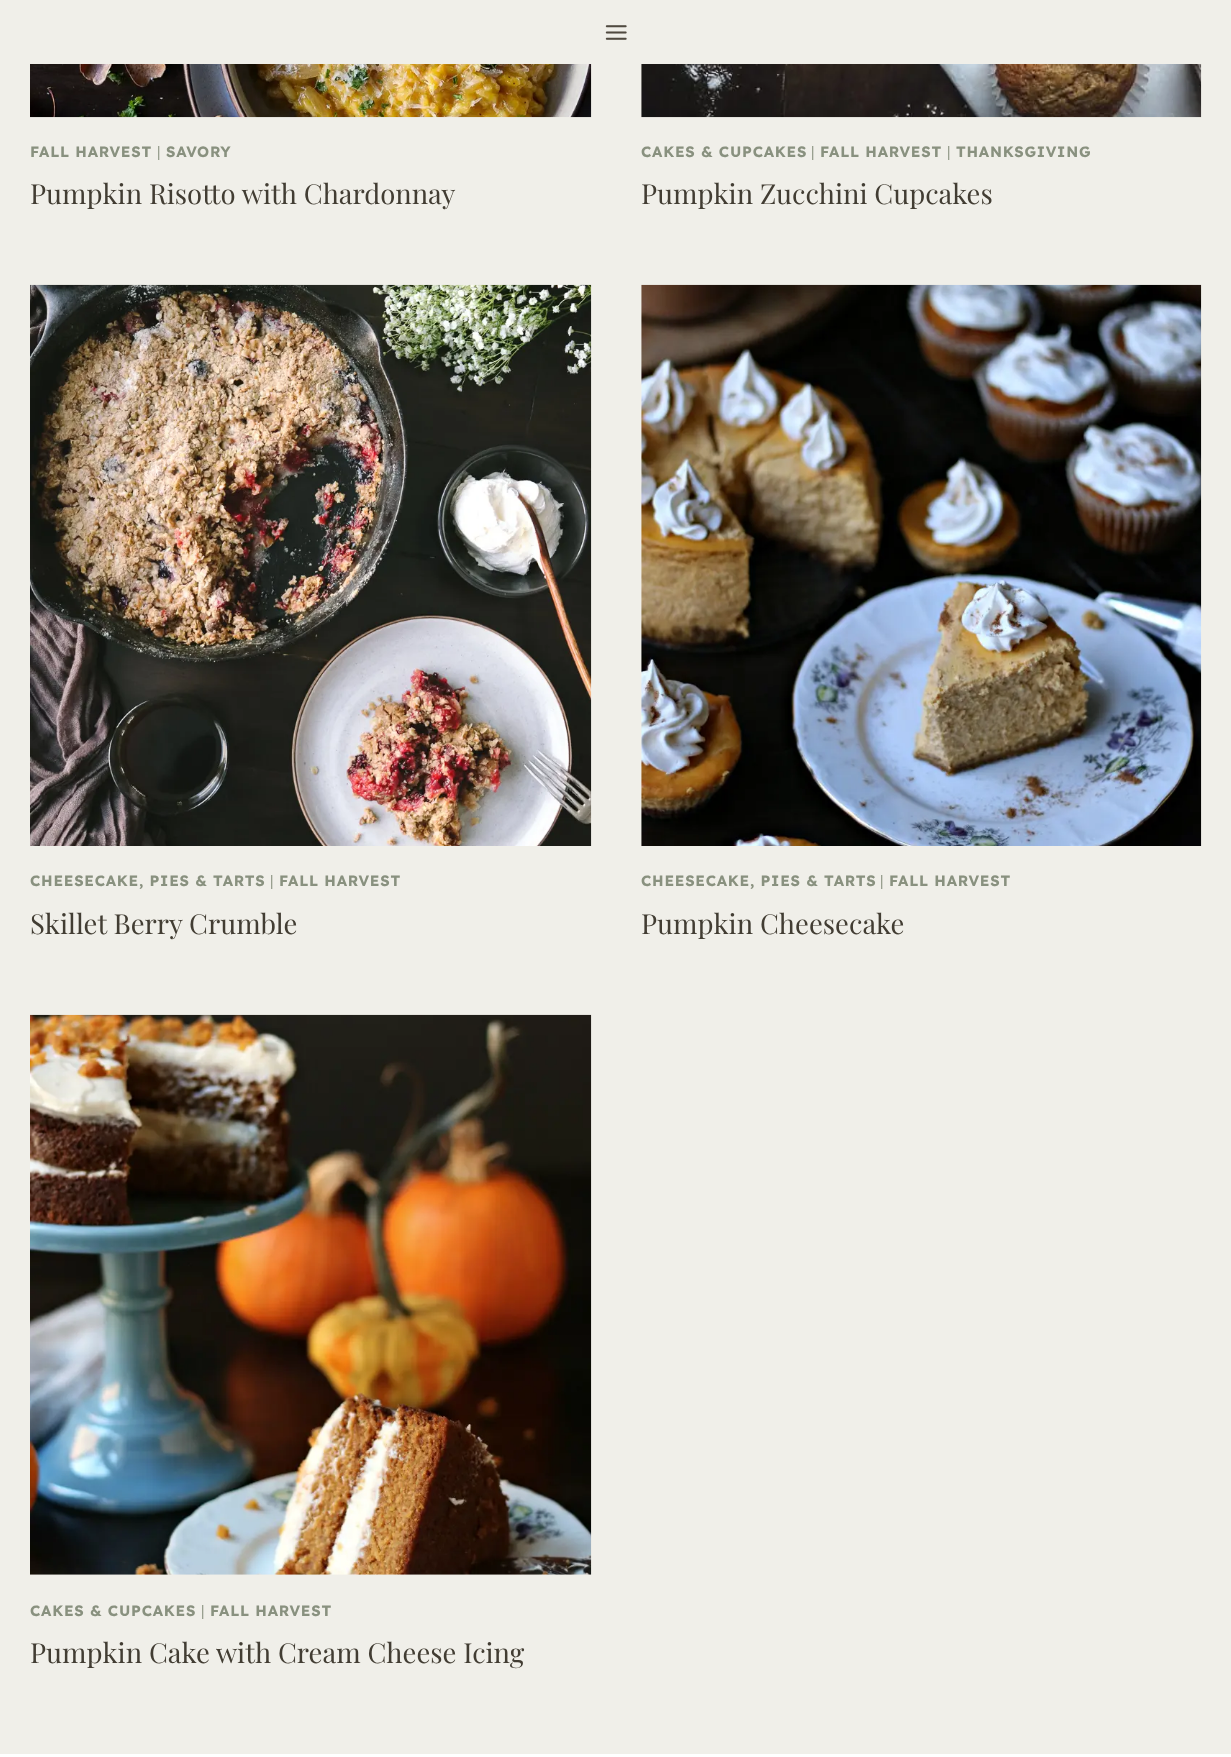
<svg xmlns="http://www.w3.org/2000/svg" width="1231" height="1757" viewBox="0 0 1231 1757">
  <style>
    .t1 { font: bold 14.9px Lexend; letter-spacing: 0.75px; fill: #89917f; }
    .t2 { font: 300 14.9px Lexend; letter-spacing: 0.75px; fill: #89917f; }
    .t3 { font: 27.5px Playfair Display; fill: #423d33; }
  </style>
  <rect width="100%" height="100%" fill="#f0efe9"/>
  <image x="605" y="25" width="22" height="15" href="images/1.png"/>
  <image x="30" y="64" width="562" height="54" href="images/2.png"/>
  <text x="30" y="157" class="t1">FALL HARVEST</text>
  <text x="157" y="157" class="t2">|</text>
  <text x="166" y="157" class="t1">SAVORY</text>
  <text x="30" y="204" class="t3">Pumpkin Risotto with Chardonnay</text>
  <image x="641" y="64" width="561" height="54" href="images/3.png"/>
  <text x="641" y="157" class="t1">CAKES &amp; CUPCAKES</text>
  <text x="811" y="157" class="t2">|</text>
  <text x="820" y="157" class="t1">FALL HARVEST</text>
  <text x="947" y="157" class="t2">|</text>
  <text x="956" y="157" class="t1">THANKSGIVING</text>
  <text x="641" y="204" class="t3">Pumpkin Zucchini Cupcakes</text>
  <image x="30" y="284" width="562" height="562" href="images/4.png"/>
  <text x="30" y="886" class="t1">CHEESECAKE, PIES &amp; TARTS</text>
  <text x="270" y="886" class="t2">|</text>
  <text x="279" y="886" class="t1">FALL HARVEST</text>
  <text x="30" y="934" class="t3">Skillet Berry Crumble</text>
  <image x="641" y="284" width="561" height="562" href="images/5.png"/>
  <text x="641" y="886" class="t1">CHEESECAKE, PIES &amp; TARTS</text>
  <text x="880" y="886" class="t2">|</text>
  <text x="889" y="886" class="t1">FALL HARVEST</text>
  <text x="641" y="934" class="t3">Pumpkin Cheesecake</text>
  <image x="30" y="1014" width="562" height="561" href="images/6.png"/>
  <text x="30" y="1616" class="t1">CAKES &amp; CUPCAKES</text>
  <text x="201" y="1616" class="t2">|</text>
  <text x="210" y="1616" class="t1">FALL HARVEST</text>
  <text x="30" y="1663" class="t3">Pumpkin Cake with Cream Cheese Icing</text>
  <rect x="0" y="1754" width="1231" height="3" fill="#fff"/>
</svg>
